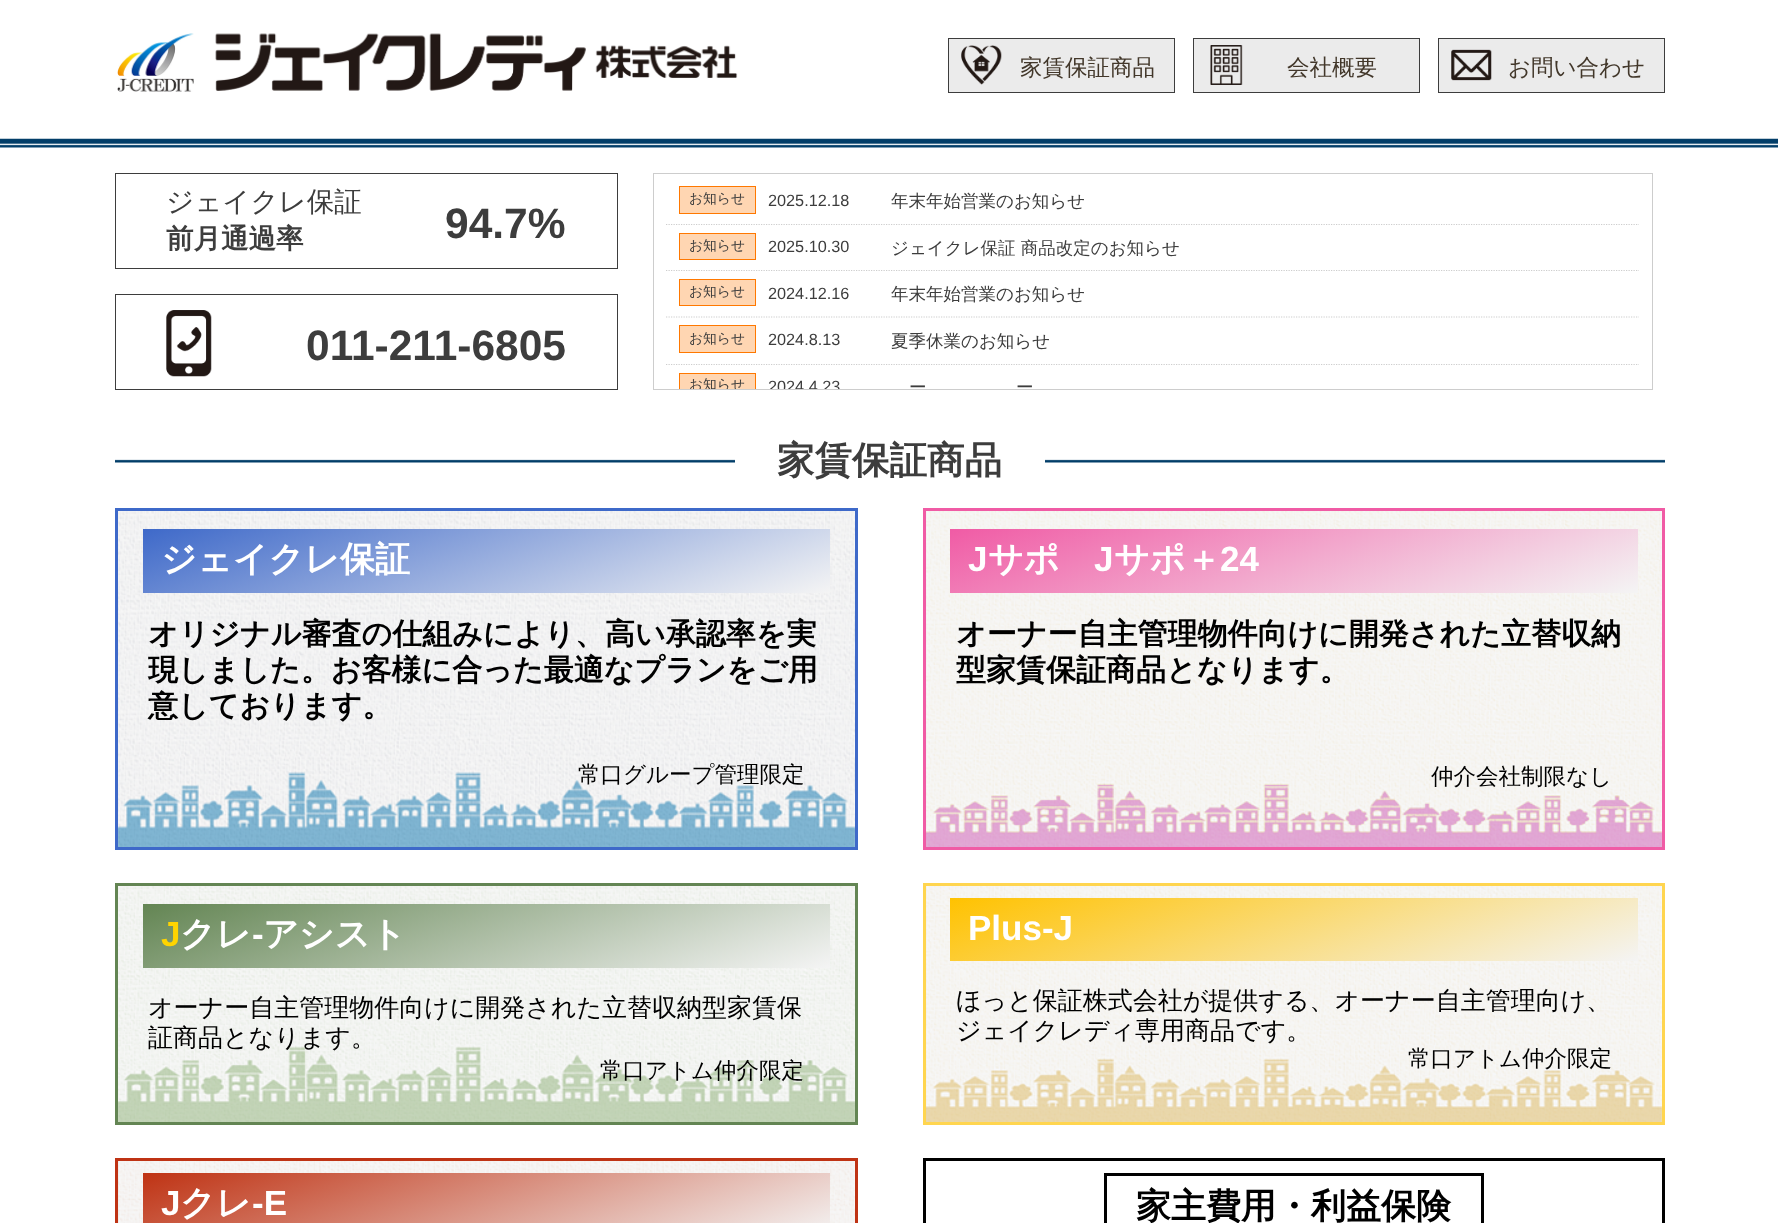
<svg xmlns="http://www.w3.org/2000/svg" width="1778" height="1223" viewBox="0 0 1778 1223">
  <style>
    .t1 { font: 500 22.5px WenQuanYi Zen Hei; fill: #42372a; }
    .t2 { font: 500 27.5px WenQuanYi Zen Hei; fill: #3d3d3d; }
    .t3 { font: bold 27.5px WenQuanYi Zen Hei; fill: #3d3d3d; }
    .t4 { font: bold 42.5px Liberation Sans; fill: #3d3d3d; }
    .t5 { font: 500 13.75px WenQuanYi Zen Hei; fill: #3d3d3d; }
    .t6 { font: 16.25px Liberation Sans; fill: #3d3d3d; }
    .t7 { font: 500 17.5px WenQuanYi Zen Hei; fill: #3d3d3d; }
    .t8 { font: bold 37.5px WenQuanYi Zen Hei; fill: #3d3d3d; }
    .t9 { font: bold 35px WenQuanYi Zen Hei; fill: #fff; }
    .t10 { font: bold 30px WenQuanYi Zen Hei; fill: #000; }
    .t11 { font: 500 22.5px WenQuanYi Zen Hei; fill: #000; }
    .t12 { font: bold 35px Liberation Sans; fill: #fff; }
    .t13 { font: bold 35px Liberation Sans; fill: #ffd400; }
    .t14 { font: 500 25px WenQuanYi Zen Hei; fill: #000; }
    .t15 { font: bold 35px WenQuanYi Zen Hei; fill: #000; }
  </style>
  <defs>
    <clipPath id="clip1"><rect x="654" y="174" width="997" height="215"/></clipPath>
    <linearGradient id="g1" gradientUnits="userSpaceOnUse" x1="436" y1="422" x2="537" y2="699"><stop offset="0" stop-color="#3e69c9"/><stop offset="1" stop-color="#f4f4f4"/></linearGradient>
    <linearGradient id="g2" gradientUnits="userSpaceOnUse" x1="1243" y1="422" x2="1344" y2="699"><stop offset="0" stop-color="#f05ba5"/><stop offset="1" stop-color="#f4f4f4"/></linearGradient>
    <linearGradient id="g3" gradientUnits="userSpaceOnUse" x1="436" y1="797" x2="537" y2="1074"><stop offset="0" stop-color="#638553"/><stop offset="1" stop-color="#f4f4f4"/></linearGradient>
    <linearGradient id="g4" gradientUnits="userSpaceOnUse" x1="1243" y1="791" x2="1344" y2="1068"><stop offset="0" stop-color="#ffc200"/><stop offset="1" stop-color="#f4f4f4"/></linearGradient>
    <linearGradient id="g5" gradientUnits="userSpaceOnUse" x1="436" y1="1066" x2="537" y2="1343"><stop offset="0" stop-color="#bf3314"/><stop offset="1" stop-color="#f4f4f4"/></linearGradient>
  </defs>
  <rect width="100%" height="100%" fill="#fff"/>
  <image x="117" y="33" width="621" height="59" href="images/1.png"/>
  <rect x="948.5" y="38.5" width="226" height="54" fill="#ebebeb" stroke="#3d3d3d"/>
  <image x="961" y="45" width="41" height="40" href="images/2.png"/>
  <text x="1020" y="75" class="t1">家賃保証商品</text>
  <rect x="1193.5" y="38.5" width="226" height="54" fill="#ebebeb" stroke="#3d3d3d"/>
  <image x="1210" y="45" width="33" height="40" href="images/3.png"/>
  <text x="1287" y="75" class="t1">会社概要</text>
  <rect x="1438.5" y="38.5" width="226" height="54" fill="#ebebeb" stroke="#3d3d3d"/>
  <image x="1451" y="49" width="41" height="32" href="images/4.png"/>
  <text x="1508" y="75" class="t1">お問い合わせ</text>
  <image x="0" y="138" width="1778" height="10" href="images/5.png"/>
  <rect x="115.5" y="173.5" width="502" height="95" fill="none" stroke="#3d3d3d"/>
  <text x="166" y="211" class="t2">ジェイクレ保証</text>
  <text x="166" y="248" class="t3">前月通過率</text>
  <text x="445" y="238" class="t4">94.7%</text>
  <rect x="115.5" y="294.5" width="502" height="95" fill="none" stroke="#3d3d3d"/>
  <image x="166" y="310" width="46" height="67" href="images/6.png"/>
  <text x="306" y="360" class="t4">011-211-6805</text>
  <rect x="653.5" y="173.5" width="999" height="216" fill="none" stroke="#cdcdcd"/>
  <path d="M666 224.5H1639" fill="none" stroke="#cdcdcd" stroke-width="1.2" stroke-dasharray="1.25 1.25"/>
  <rect x="679.5" y="186.5" width="76" height="27" fill="#ffd6b2" stroke="#ff7800"/>
  <text x="689" y="203" class="t5">お知らせ</text>
  <text x="768" y="206" class="t6">2025.12.18</text>
  <text x="891" y="207" class="t7">年末年始営業のお知らせ</text>
  <path d="M666 270.5H1639" fill="none" stroke="#cdcdcd" stroke-width="1.2" stroke-dasharray="1.25 1.25"/>
  <rect x="679.5" y="233.5" width="76" height="26" fill="#ffd6b2" stroke="#ff7800"/>
  <text x="689" y="250" class="t5">お知らせ</text>
  <text x="768" y="252" class="t6">2025.10.30</text>
  <text x="891" y="254" class="t7">ジェイクレ保証 商品改定のお知らせ</text>
  <path d="M666 317H1639" fill="none" stroke="#cdcdcd" stroke-width="1.2" stroke-dasharray="1.25 1.25"/>
  <rect x="679.5" y="279.5" width="76" height="26" fill="#ffd6b2" stroke="#ff7800"/>
  <text x="689" y="296" class="t5">お知らせ</text>
  <text x="768" y="299" class="t6">2024.12.16</text>
  <text x="891" y="300" class="t7">年末年始営業のお知らせ</text>
  <path d="M666 364.5H1639" fill="none" stroke="#cdcdcd" stroke-width="1.2" stroke-dasharray="1.25 1.25"/>
  <rect x="679.5" y="325.5" width="76" height="27" fill="#ffd6b2" stroke="#ff7800"/>
  <text x="689" y="343" class="t5">お知らせ</text>
  <text x="768" y="345" class="t6">2024.8.13</text>
  <text x="891" y="347" class="t7">夏季休業のお知らせ</text>
  <rect x="680" y="374" width="75" height="15" fill="#ffd6b2"/>
  <g clip-path="url(#clip1)">
    <rect x="679.5" y="373.5" width="76" height="25" fill="none" stroke="#ff7800"/>
    <text x="689" y="389" class="t5">お知らせ</text>
    <text x="768" y="392" class="t6">2024.4.23</text>
  </g>
  <text x="909" y="393" class="t7">ー</text>
  <text x="1016" y="393" class="t7">ー</text>
  <image x="115" y="459" width="620" height="4" href="images/7.png"/>
  <text x="777" y="473" class="t8">家賃保証商品</text>
  <image x="1045" y="459" width="620" height="4" href="images/7.png"/>
  <image x="118" y="511" width="737" height="336" href="images/8.png"/>
  <rect x="116.5" y="509.5" width="740" height="339" fill="none" stroke="#3e69c9" stroke-width="3"/>
  <rect x="143" y="529" width="687" height="64" fill="url(#g1)"/>
  <text x="161" y="571" class="t9">ジェイクレ保証</text>
  <text x="148" y="644" class="t10">オリジナル審査の仕組みにより、高い承認率を実</text>
  <text x="148" y="680" class="t10">現しました。お客様に合った最適なプランをご用</text>
  <text x="148" y="716" class="t10">意しております。</text>
  <text x="578" y="782" class="t11">常口グループ管理限定</text>
  <image x="926" y="511" width="736" height="336" href="images/9.png"/>
  <rect x="924.5" y="509.5" width="739" height="339" fill="none" stroke="#f05ba5" stroke-width="3"/>
  <rect x="950" y="529" width="688" height="64" fill="url(#g2)"/>
  <text x="968" y="571" class="t12">J</text>
  <text x="988" y="571" class="t9">サポ</text>
  <text x="1094" y="571" class="t12">J</text>
  <text x="1114" y="571" class="t9">サポ＋</text>
  <text x="1220" y="571" class="t12">24</text>
  <text x="956" y="644" class="t10">オーナー自主管理物件向けに開発された立替収納</text>
  <text x="956" y="680" class="t10">型家賃保証商品となります。</text>
  <text x="1431" y="784" class="t11">仲介会社制限なし</text>
  <image x="118" y="886" width="737" height="236" href="images/10.png"/>
  <rect x="116.5" y="884.5" width="740" height="239" fill="none" stroke="#638553" stroke-width="3"/>
  <rect x="143" y="904" width="687" height="64" fill="url(#g3)"/>
  <text x="161" y="946" class="t13">J</text>
  <text x="180" y="946" class="t9">クレ</text>
  <text x="252" y="946" class="t12">-</text>
  <text x="263" y="946" class="t9">アシスト</text>
  <text x="148" y="1016" class="t14">オーナー自主管理物件向けに開発された立替収納型家賃保</text>
  <text x="148" y="1046" class="t14">証商品となります。</text>
  <text x="600" y="1078" class="t11">常口アトム仲介限定</text>
  <image x="926" y="886" width="736" height="236" href="images/11.png"/>
  <rect x="924.5" y="884.5" width="739" height="239" fill="none" stroke="#ffd54f" stroke-width="3"/>
  <rect x="950" y="898" width="688" height="63" fill="url(#g4)"/>
  <text x="968" y="940" class="t12">Plus-J</text>
  <text x="956" y="1009" class="t14">ほっと保証株式会社が提供する、オーナー自主管理向け、</text>
  <text x="956" y="1039" class="t14">ジェイクレディ専用商品です。</text>
  <text x="1408" y="1066" class="t11">常口アトム仲介限定</text>
  <image x="118" y="1161" width="737" height="62" href="images/12.png"/>
  <rect x="116.5" y="1159.5" width="740" height="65" fill="none" stroke="#bf3314" stroke-width="3"/>
  <rect x="143" y="1173" width="687" height="50" fill="url(#g5)"/>
  <text x="161" y="1215" class="t12">J</text>
  <text x="180" y="1215" class="t9">クレ</text>
  <text x="252" y="1215" class="t12">-E</text>
  <rect x="924.5" y="1159.5" width="739" height="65" fill="none" stroke="#000" stroke-width="3"/>
  <rect x="1105.5" y="1174.5" width="377" height="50" fill="none" stroke="#000" stroke-width="3"/>
  <text x="1136" y="1218" class="t15">家主費用・利益保険</text>
</svg>
